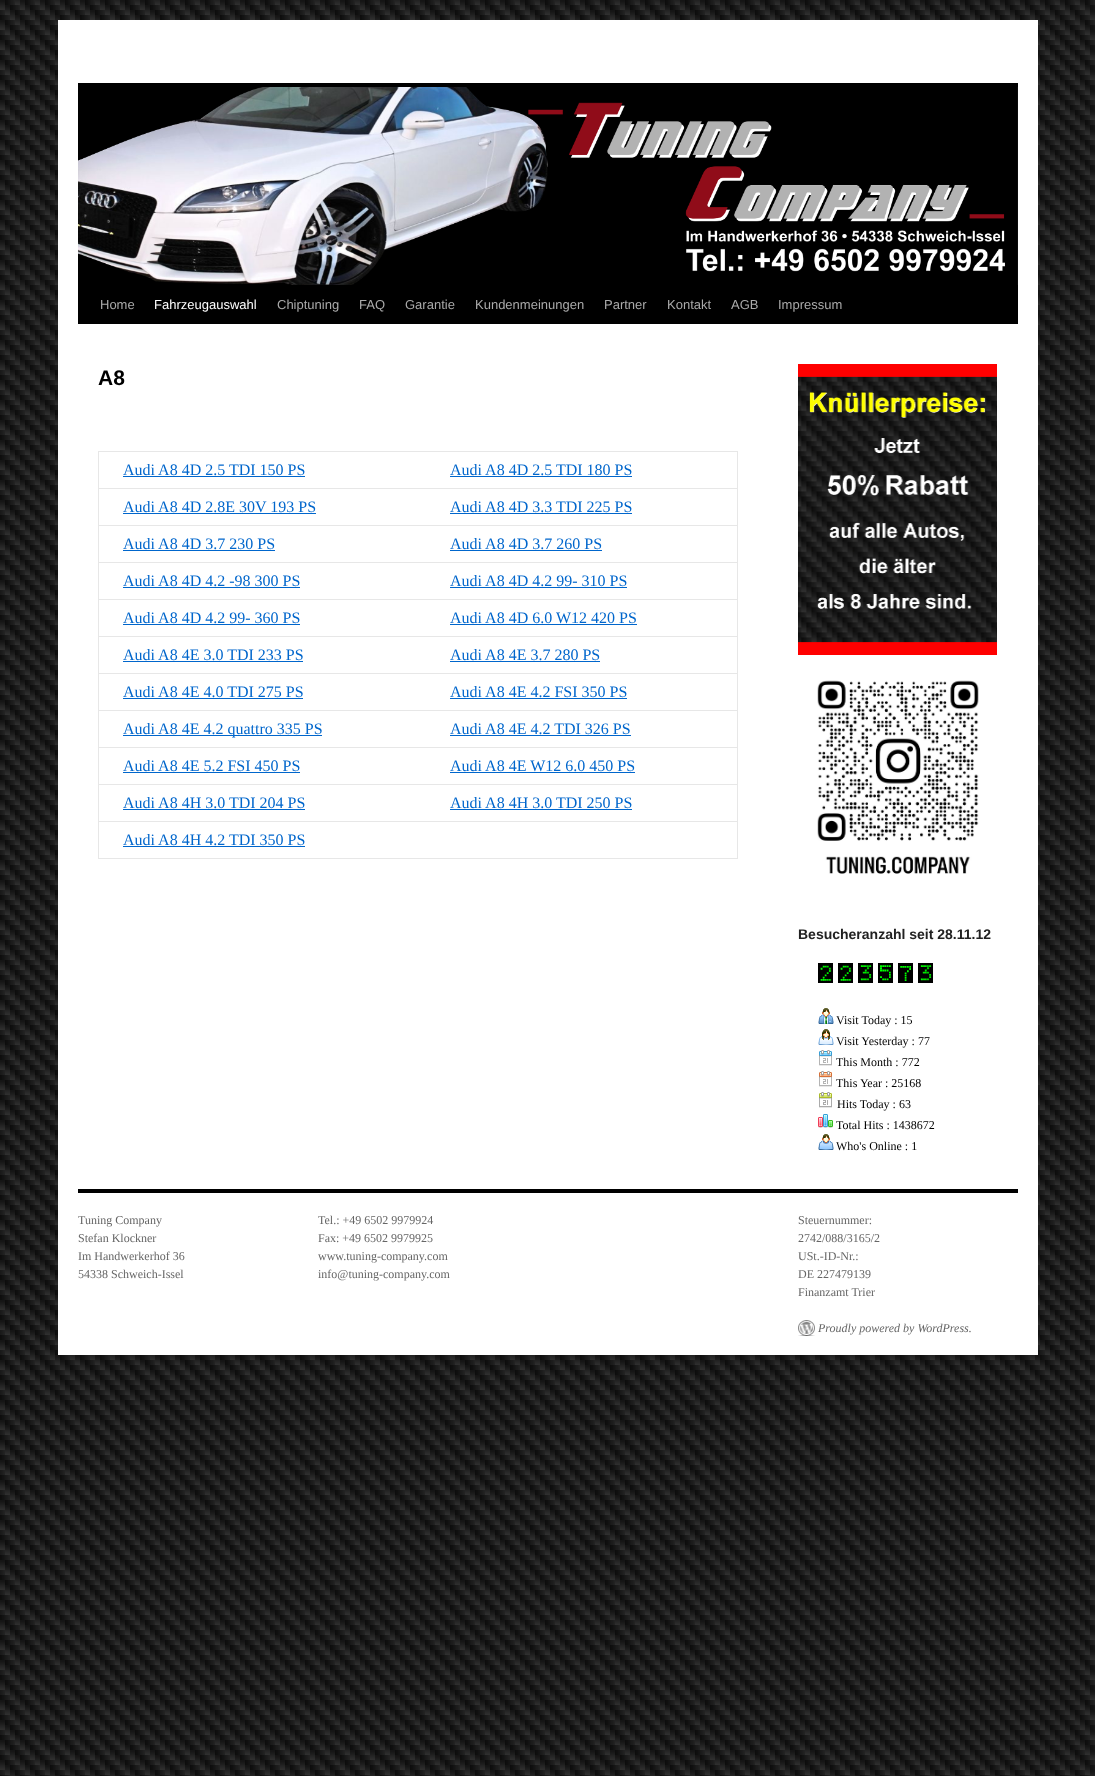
<svg xmlns="http://www.w3.org/2000/svg" width="1095" height="1776" viewBox="0 0 1095 1776">
  <style>
    .t1 { font: 13px Liberation Sans; fill: #aaa; }
    .t2 { font: 13px Liberation Sans; fill: #fff; }
    .t3 { font: bold 21px Liberation Sans; fill: #000; }
    .t4 { font: 16px Liberation Serif; fill: #06c; }
    .t5 { font: bold 14px Liberation Sans; fill: #222; }
    .t6 { font: 12px Liberation Serif; fill: #000; }
    .t7 { font: 12px Liberation Serif; fill: #666; }
    .t8 { font: italic 12px Liberation Serif; fill: #666; }
  </style>
  <rect width="100%" height="100%" fill="#fff"/>
  <image x="0" y="0" width="1095" height="1776" href="images/1.png"/>
  <rect x="58" y="20" width="980" height="1335" fill="#fff"/>
  <rect x="78" y="83" width="940" height="4" fill="#000"/>
  <rect x="78" y="285" width="940" height="39" fill="#000"/>
  <image x="78" y="87" width="940" height="198" href="images/2.png"/>
  <text x="100" y="309" class="t1">Home</text>
  <text x="154" y="309" class="t2">Fahrzeugauswahl</text>
  <text x="277" y="309" class="t1">Chiptuning</text>
  <text x="359" y="309" class="t1">FAQ</text>
  <text x="405" y="309" class="t1">Garantie</text>
  <text x="475" y="309" class="t1">Kundenmeinungen</text>
  <text x="604" y="309" class="t1">Partner</text>
  <text x="667" y="309" class="t1">Kontakt</text>
  <text x="731" y="309" class="t1">AGB</text>
  <text x="778" y="309" class="t1">Impressum</text>
  <text x="98" y="385" class="t3">A8</text>
  <rect x="98" y="451" width="640" height="1" fill="#e7e7e7"/>
  <rect x="737" y="451" width="1" height="408" fill="#e7e7e7"/>
  <rect x="98" y="858" width="640" height="1" fill="#e7e7e7"/>
  <rect x="98" y="451" width="1" height="408" fill="#e7e7e7"/>
  <text x="123" y="475" class="t4">Audi A8 4D 2.5 TDI 150 PS</text>
  <rect x="123" y="476" width="182" height="1" fill="#06c"/>
  <text x="450" y="475" class="t4">Audi A8 4D 2.5 TDI 180 PS</text>
  <rect x="450" y="476" width="182" height="1" fill="#06c"/>
  <text x="123" y="512" class="t4">Audi A8 4D 2.8E 30V 193 PS</text>
  <rect x="123" y="513" width="193" height="1" fill="#06c"/>
  <rect x="98" y="488" width="640" height="1" fill="#e7e7e7"/>
  <text x="450" y="512" class="t4">Audi A8 4D 3.3 TDI 225 PS</text>
  <rect x="450" y="513" width="182" height="1" fill="#06c"/>
  <text x="123" y="549" class="t4">Audi A8 4D 3.7 230 PS</text>
  <rect x="123" y="550" width="152" height="1" fill="#06c"/>
  <rect x="98" y="525" width="640" height="1" fill="#e7e7e7"/>
  <text x="450" y="549" class="t4">Audi A8 4D 3.7 260 PS</text>
  <rect x="450" y="550" width="152" height="1" fill="#06c"/>
  <text x="123" y="586" class="t4">Audi A8 4D 4.2 -98 300 PS</text>
  <rect x="123" y="587" width="177" height="1" fill="#06c"/>
  <rect x="98" y="562" width="640" height="1" fill="#e7e7e7"/>
  <text x="450" y="586" class="t4">Audi A8 4D 4.2 99- 310 PS</text>
  <rect x="450" y="587" width="177" height="1" fill="#06c"/>
  <text x="123" y="623" class="t4">Audi A8 4D 4.2 99- 360 PS</text>
  <rect x="123" y="624" width="177" height="1" fill="#06c"/>
  <rect x="98" y="599" width="640" height="1" fill="#e7e7e7"/>
  <text x="450" y="623" class="t4">Audi A8 4D 6.0 W12 420 PS</text>
  <rect x="450" y="624" width="187" height="1" fill="#06c"/>
  <text x="123" y="660" class="t4">Audi A8 4E 3.0 TDI 233 PS</text>
  <rect x="123" y="661" width="180" height="1" fill="#06c"/>
  <rect x="98" y="636" width="640" height="1" fill="#e7e7e7"/>
  <text x="450" y="660" class="t4">Audi A8 4E 3.7 280 PS</text>
  <rect x="450" y="661" width="150" height="1" fill="#06c"/>
  <text x="123" y="697" class="t4">Audi A8 4E 4.0 TDI 275 PS</text>
  <rect x="123" y="698" width="180" height="1" fill="#06c"/>
  <rect x="98" y="673" width="640" height="1" fill="#e7e7e7"/>
  <text x="450" y="697" class="t4">Audi A8 4E 4.2 FSI 350 PS</text>
  <rect x="450" y="698" width="177" height="1" fill="#06c"/>
  <rect x="123" y="735" width="199" height="1" fill="#06c"/>
  <text x="123" y="734" class="t4">Audi A8 4E 4.2 quattro 335 PS</text>
  <rect x="98" y="710" width="640" height="1" fill="#e7e7e7"/>
  <text x="450" y="734" class="t4">Audi A8 4E 4.2 TDI 326 PS</text>
  <rect x="450" y="735" width="181" height="1" fill="#06c"/>
  <text x="123" y="771" class="t4">Audi A8 4E 5.2 FSI 450 PS</text>
  <rect x="123" y="772" width="177" height="1" fill="#06c"/>
  <rect x="98" y="747" width="640" height="1" fill="#e7e7e7"/>
  <text x="450" y="771" class="t4">Audi A8 4E W12 6.0 450 PS</text>
  <rect x="450" y="772" width="185" height="1" fill="#06c"/>
  <text x="123" y="808" class="t4">Audi A8 4H 3.0 TDI 204 PS</text>
  <rect x="123" y="809" width="182" height="1" fill="#06c"/>
  <rect x="98" y="784" width="640" height="1" fill="#e7e7e7"/>
  <text x="450" y="808" class="t4">Audi A8 4H 3.0 TDI 250 PS</text>
  <rect x="450" y="809" width="182" height="1" fill="#06c"/>
  <rect x="98" y="821" width="640" height="1" fill="#e7e7e7"/>
  <text x="123" y="845" class="t4">Audi A8 4H 4.2 TDI 350 PS</text>
  <rect x="123" y="846" width="182" height="1" fill="#06c"/>
  <image x="798" y="364" width="199" height="291" href="images/3.png"/>
  <image x="817" y="680" width="162" height="194" href="images/4.png"/>
  <text x="798" y="939" class="t5">Besucheranzahl seit 28.11.12</text>
  <image x="818" y="963" width="15" height="20" href="images/5.png"/>
  <image x="838" y="963" width="15" height="20" href="images/5.png"/>
  <image x="858" y="963" width="15" height="20" href="images/6.png"/>
  <image x="878" y="963" width="15" height="20" href="images/7.png"/>
  <image x="898" y="963" width="15" height="20" href="images/8.png"/>
  <image x="918" y="963" width="15" height="20" href="images/6.png"/>
  <image x="818" y="1008" width="16" height="16" href="images/9.png"/>
  <text x="836" y="1024" class="t6">Visit Today : 15</text>
  <image x="818" y="1029" width="16" height="16" href="images/10.png"/>
  <text x="836" y="1045" class="t6">Visit Yesterday : 77</text>
  <image x="819" y="1050" width="13" height="16" href="images/11.png"/>
  <text x="836" y="1066" class="t6">This Month : 772</text>
  <image x="819" y="1071" width="13" height="16" href="images/12.png"/>
  <text x="836" y="1087" class="t6">This Year : 25168</text>
  <image x="819" y="1092" width="13" height="16" href="images/13.png"/>
  <text x="837" y="1108" class="t6">Hits Today : 63</text>
  <image x="818" y="1114" width="15" height="14" href="images/14.png"/>
  <text x="836" y="1129" class="t6">Total Hits : 1438672</text>
  <image x="818" y="1134" width="16" height="16" href="images/15.png"/>
  <text x="836" y="1150" class="t6">Who's Online : 1</text>
  <rect x="78" y="1189" width="940" height="4" fill="#000"/>
  <text x="78" y="1224" class="t7">Tuning Company</text>
  <text x="78" y="1242" class="t7">Stefan Klockner</text>
  <text x="78" y="1260" class="t7">Im Handwerkerhof 36</text>
  <text x="78" y="1278" class="t7">54338 Schweich-Issel</text>
  <text x="318" y="1224" class="t7">Tel.: +49 6502 9979924</text>
  <text x="318" y="1242" class="t7">Fax: +49 6502 9979925</text>
  <text x="318" y="1260" class="t7">www.tuning-company.com</text>
  <text x="318" y="1278" class="t7">info@tuning-company.com</text>
  <text x="798" y="1224" class="t7">Steuernummer:</text>
  <text x="798" y="1242" class="t7">2742/088/3165/2</text>
  <text x="798" y="1260" class="t7">USt.-ID-Nr.:</text>
  <text x="798" y="1278" class="t7">DE 227479139</text>
  <text x="798" y="1296" class="t7">Finanzamt Trier</text>
  <image x="798" y="1320" width="17" height="16" href="images/16.png"/>
  <text x="818" y="1332" class="t8">Proudly powered by WordPress.</text>
</svg>
